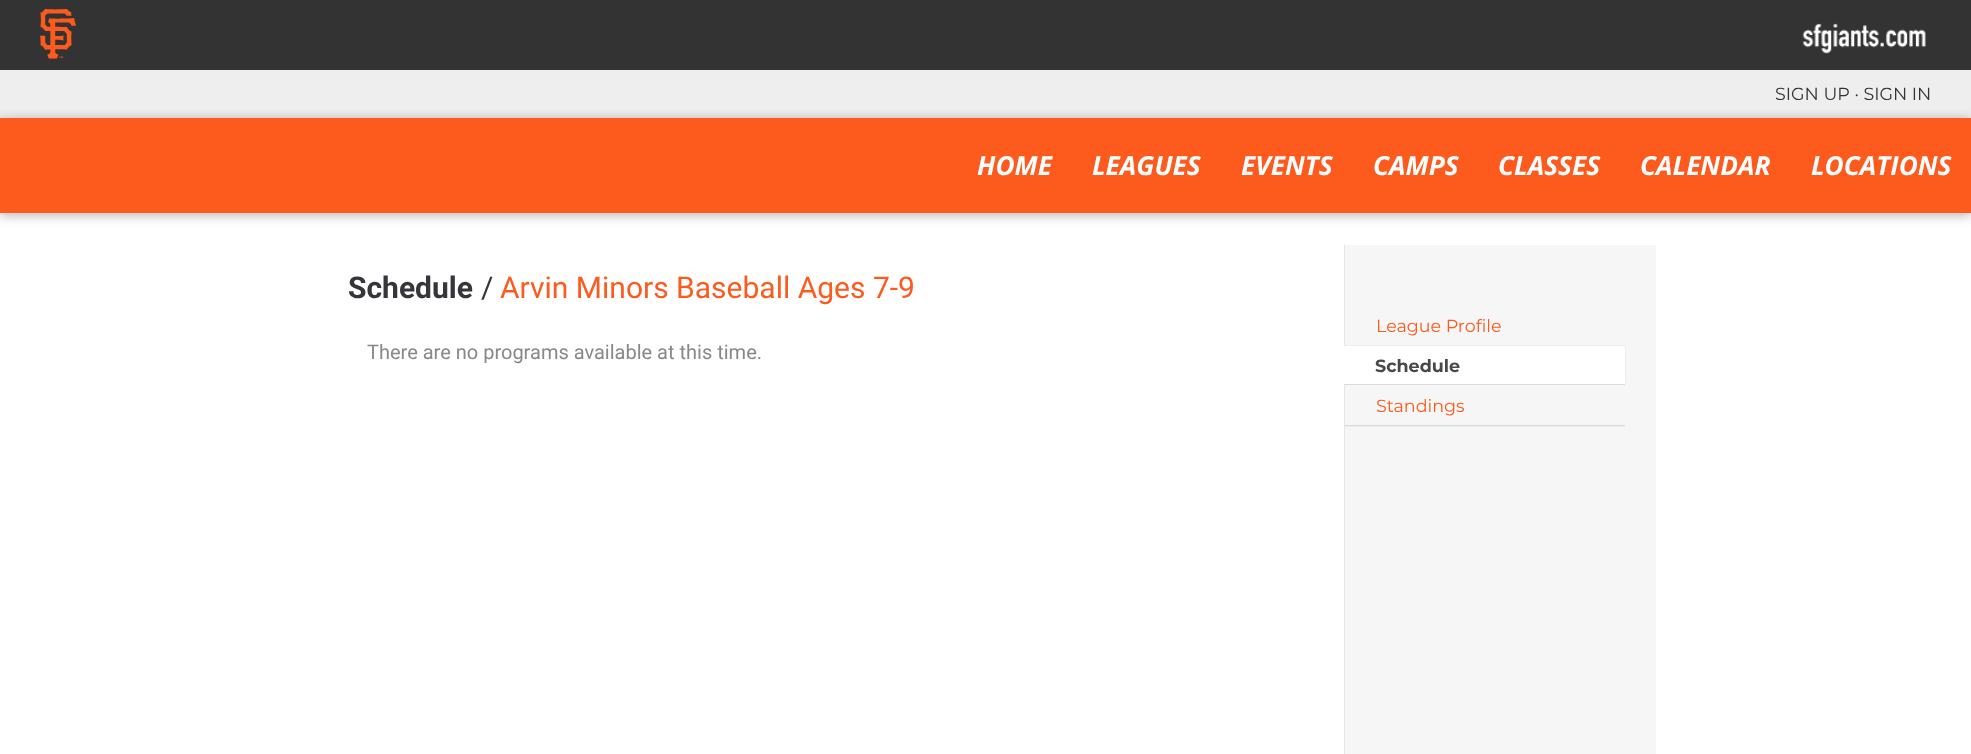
<svg xmlns="http://www.w3.org/2000/svg" width="1971" height="754" viewBox="0 0 1971 754">
  <style>
    .t1 { font: 17.5px Montserrat; fill: #333; }
    .t2 { font: italic bold 26.25px Open Sans; fill: #fff; }
    .t3 { font: bold 30px Roboto; fill: #35363a; }
    .t4 { font: 30px Roboto; fill: #35363a; }
    .t5 { font: 30px Roboto; fill: #fd5a1e; }
    .t6 { font: 20px Roboto; fill: #888; }
    .t7 { font: 17.5px Montserrat; fill: #fd5a1e; }
    .t8 { font: bold 17.5px Montserrat; fill: #484848; }
  </style>
  <rect width="100%" height="100%" fill="#fff"/>
  <image x="0" y="0" width="1971" height="70" href="images/1.png"/>
  <rect x="0" y="70" width="1971" height="48" fill="#eee"/>
  <text x="1775" y="100" class="t1">SIGN UP · SIGN IN</text>
  <rect x="0" y="120" width="1971" height="95" fill="#0000004d" filter="blur(6px)"/>
  <rect x="0" y="118" width="1971" height="95" fill="#fd5a1e"/>
  <text x="977" y="175" class="t2">HOME</text>
  <text x="1092" y="175" class="t2">LEAGUES</text>
  <text x="1241" y="175" class="t2">EVENTS</text>
  <text x="1373" y="175" class="t2">CAMPS</text>
  <text x="1498" y="175" class="t2">CLASSES</text>
  <text x="1640" y="175" class="t2">CALENDAR</text>
  <text x="1811" y="175" class="t2">LOCATIONS</text>
  <text x="348" y="298" class="t3">Schedule</text>
  <text x="481" y="298" class="t4">/</text>
  <text x="500" y="298" class="t5">Arvin Minors Baseball Ages 7-9</text>
  <text x="367" y="359" class="t6">There are no programs available at this time.</text>
  <rect x="1345" y="245" width="311" height="509" fill="#f6f6f6"/>
  <rect x="1344" y="245" width="1" height="509" fill="#e5e5e5"/>
  <image x="1623" y="345" width="2" height="1" href="images/2.png"/>
  <text x="1376" y="332" class="t7">League Profile</text>
  <image x="1345" y="383" width="280" height="2" href="images/3.png"/>
  <path d="M1344 345H1623.5C1625 345 1626 346 1626 347.5V381.5C1626 383 1625 384 1623.5 384H1344Z" fill="#fff"/>
  <rect x="1344" y="345" width="281" height="1" fill="#00000012"/>
  <rect x="1625" y="346" width="1" height="37" fill="#ededed"/>
  <text x="1375" y="372" class="t8">Schedule</text>
  <image x="1345" y="425" width="280" height="2" href="images/4.png"/>
  <text x="1376" y="412" class="t7">Standings</text>
</svg>
